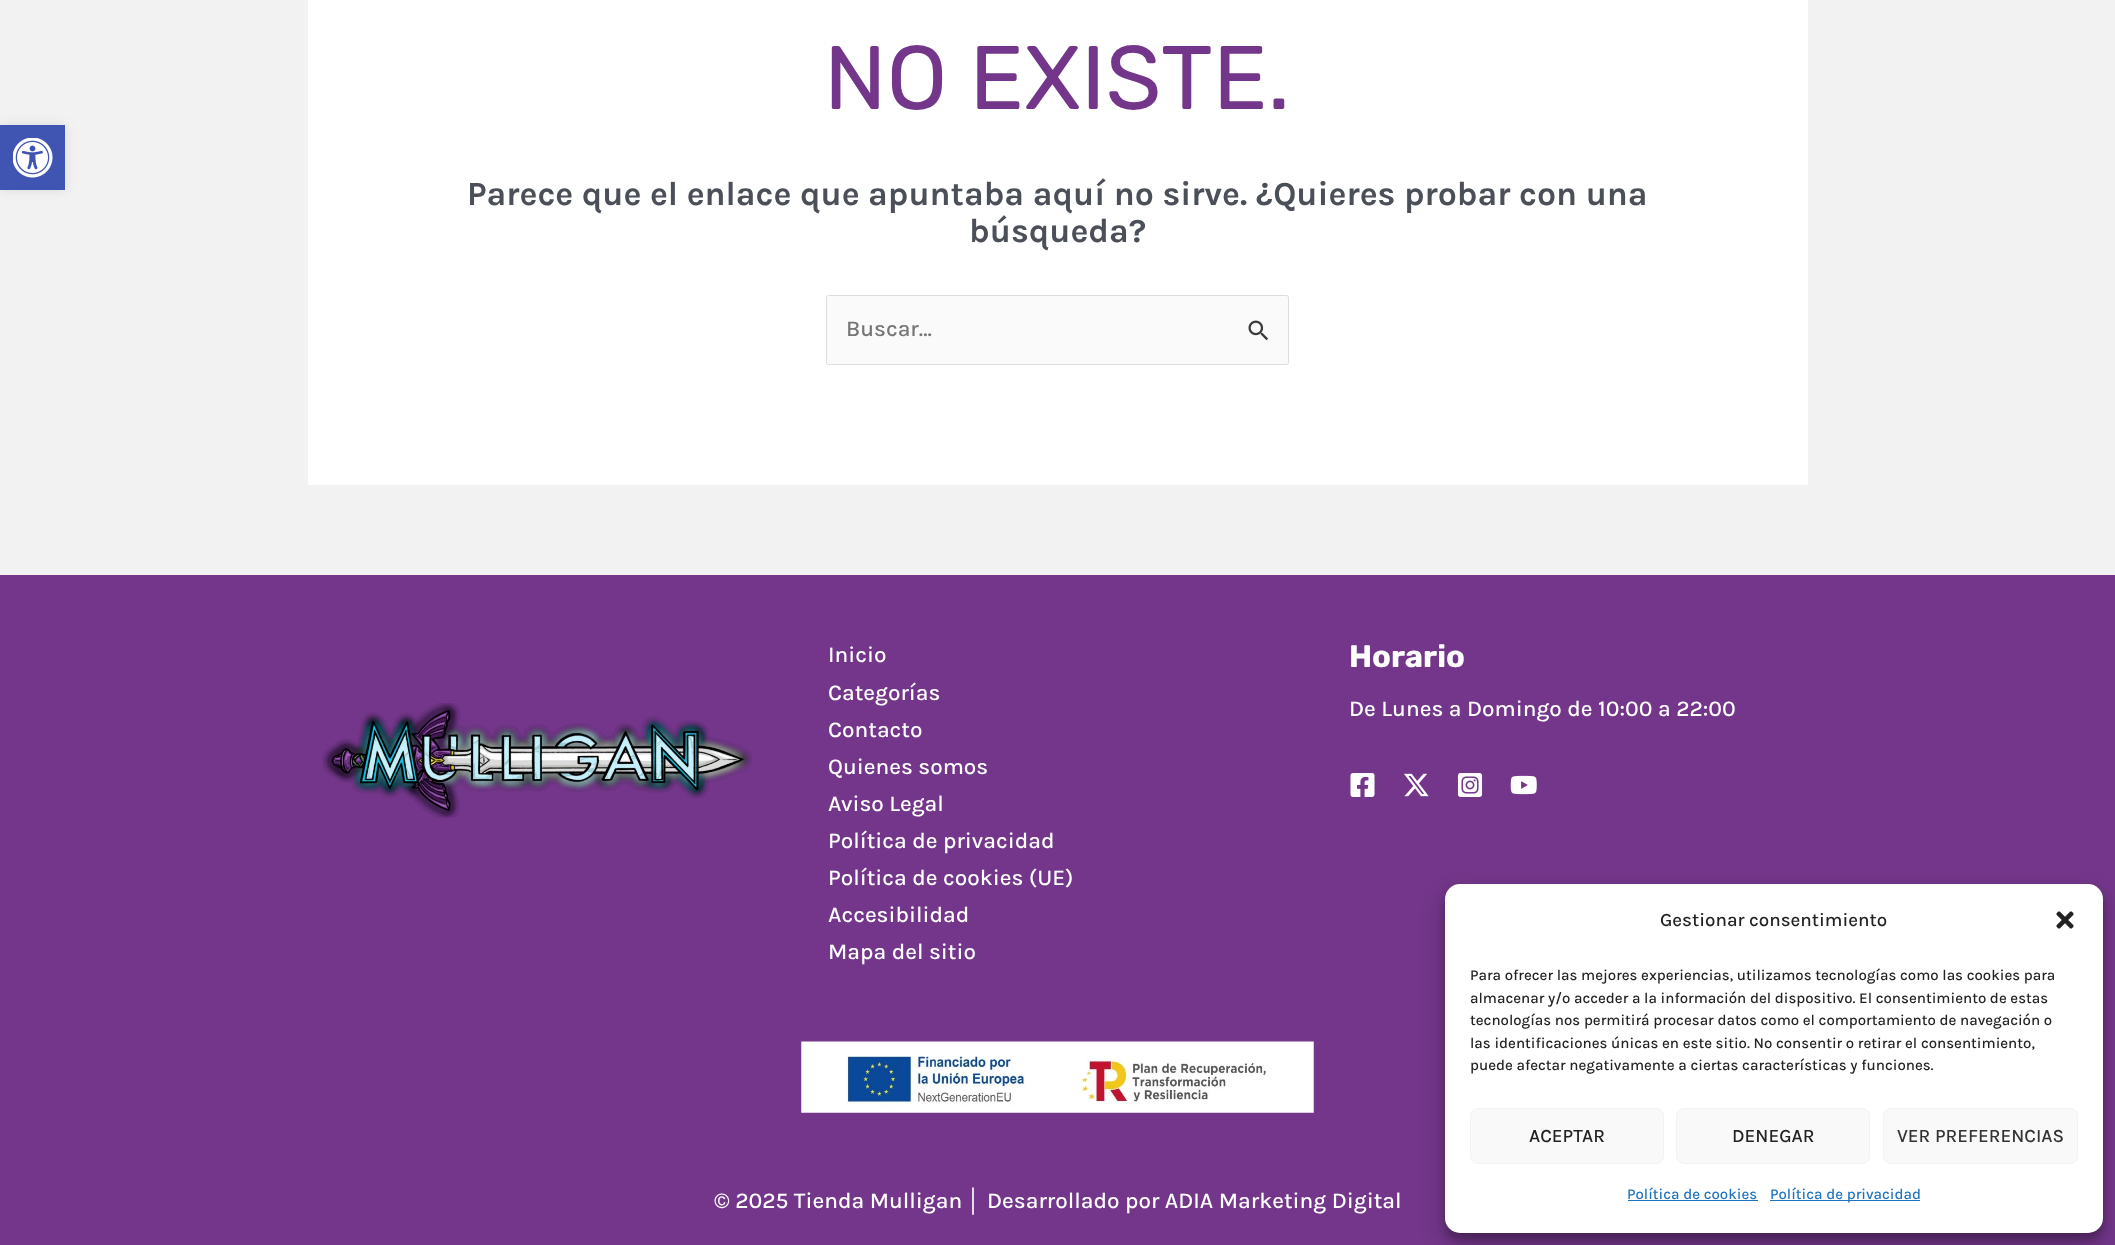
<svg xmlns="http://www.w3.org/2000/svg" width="2115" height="1245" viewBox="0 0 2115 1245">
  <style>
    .t1 { font: 90px Rubik; fill: #73368a; }
    .t2 { font: bold 33.75px Karla; fill: #4b4f58; }
    .t3 { font: 500 22.5px Karla; fill: #757575; }
    .t4 { font: 500 22.5px Karla; fill: #fff; }
    .t5 { font: bold 31px Rubik; fill: #fff; }
    .t6 { font: 22.5px Liberation Sans; fill: #fff; }
    .t7 { font: 500 18.75px Karla; fill: #222; }
    .t8 { font: 500 15px Karla; fill: #222; }
    .t9 { font: 500 18.75px Karla; fill: #333; }
    .t10 { font: 500 15px Karla; fill: #1e73be; }
  </style>
  <rect width="100%" height="100%" fill="#f2f2f2"/>
  <rect x="0" y="125" width="65" height="65" fill="#0000001a" filter="blur(6px)"/>
  <rect x="0" y="125" width="65" height="65" fill="#4054b2"/>
  <image x="13" y="138" width="40" height="40" href="images/1.png"/>
  <rect x="308" y="0" width="1500" height="485" fill="#fff"/>
  <text x="824" y="109" class="t1">NO EXISTE.</text>
  <text x="467" y="205" class="t2">Parece que el enlace que apuntaba aquí no sirve. ¿Quieres probar con una</text>
  <text x="969" y="242" class="t2">búsqueda?</text>
  <rect x="826.5" y="295.5" width="462" height="69" rx="2" fill="#fafafa" stroke="#ddd"/>
  <text x="846" y="336" class="t3">Buscar...</text>
  <image x="1248" y="320" width="20" height="21" href="images/2.png"/>
  <rect x="0" y="575" width="2115" height="670" fill="#73368a"/>
  <image x="322" y="703" width="430" height="115" href="images/3.png"/>
  <text x="828" y="662" class="t4">Inicio</text>
  <text x="828" y="700" class="t4">Categorías</text>
  <text x="828" y="737" class="t4">Contacto</text>
  <text x="828" y="774" class="t4">Quienes somos</text>
  <text x="828" y="811" class="t4">Aviso Legal</text>
  <text x="828" y="848" class="t4">Política de privacidad</text>
  <text x="828" y="885" class="t4">Política de cookies (UE)</text>
  <text x="828" y="922" class="t4">Accesibilidad</text>
  <text x="828" y="959" class="t4">Mapa del sitio</text>
  <text x="1349" y="667" class="t5">Horario</text>
  <text x="1349" y="716" class="t4">De Lunes a Domingo de 10:00 a 22:00</text>
  <image x="1350" y="773" width="25" height="24" href="images/4.png"/>
  <image x="1404" y="773" width="25" height="24" href="images/5.png"/>
  <image x="1457" y="773" width="26" height="24" href="images/6.png"/>
  <image x="1510" y="775" width="27" height="20" href="images/7.png"/>
  <image x="801" y="1041" width="513" height="72" href="images/8.png"/>
  <text x="714" y="1208" class="t4">© 2025 Tienda Mulligan</text>
  <text x="967" y="1208" class="t6">│</text>
  <text x="987" y="1208" class="t4">Desarrollado por ADIA Marketing Digital</text>
  <rect x="1445" y="891" width="658" height="349" rx="15" fill="#0000003b" filter="blur(4px)"/>
  <rect x="1445" y="896" width="658" height="349" rx="15" fill="#00000030" filter="blur(12.5px)"/>
  <rect x="1445" y="884" width="658" height="349" rx="15" fill="#fff"/>
  <text x="1660" y="926" class="t7">Gestionar consentimiento</text>
  <image x="2056" y="911" width="18" height="18" href="images/9.png"/>
  <text x="1470" y="980" class="t8">Para ofrecer las mejores experiencias, utilizamos tecnologías como las cookies para</text>
  <text x="1470" y="1003" class="t8">almacenar y/o acceder a la información del dispositivo. El consentimiento de estas</text>
  <text x="1470" y="1025" class="t8">tecnologías nos permitirá procesar datos como el comportamiento de navegación o</text>
  <text x="1470" y="1048" class="t8">las identificaciones únicas en este sitio. No consentir o retirar el consentimiento,</text>
  <text x="1470" y="1070" class="t8">puede afectar negativamente a ciertas características y funciones.</text>
  <rect x="1470.5" y="1108.5" width="193" height="55" rx="7.5" fill="#f9f9f9" stroke="#f2f2f2"/>
  <text x="1529" y="1142" class="t7">ACEPTAR</text>
  <rect x="1676.5" y="1108.5" width="193" height="55" rx="7.5" fill="#f9f9f9" stroke="#f2f2f2"/>
  <text x="1732" y="1142" class="t7">DENEGAR</text>
  <rect x="1883.5" y="1108.5" width="194" height="55" rx="7.5" fill="#f9f9f9" stroke="#f2f2f2"/>
  <text x="1897" y="1142" class="t9">VER PREFERENCIAS</text>
  <text x="1627" y="1199" class="t10">Política de cookies</text>
  <rect x="1628" y="1200" width="130" height="1" fill="#1e73be"/>
  <rect x="1770" y="1200" width="150" height="1" fill="#1e73be"/>
  <text x="1770" y="1199" class="t10">Política de privacidad</text>
</svg>
